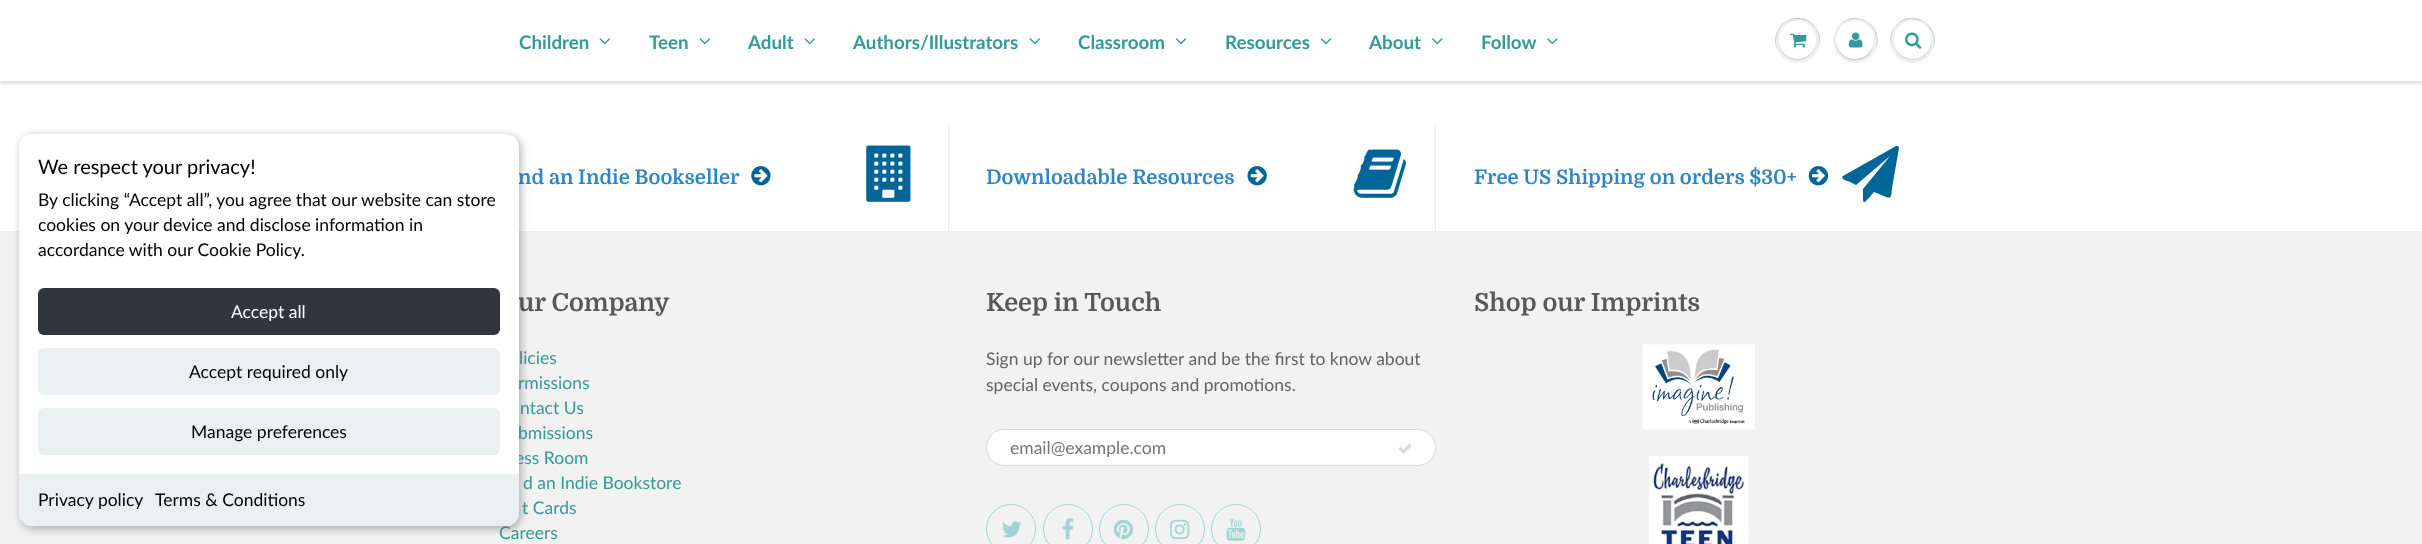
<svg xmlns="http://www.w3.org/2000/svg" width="2422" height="544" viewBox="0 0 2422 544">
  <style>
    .t1 { font: bold 18.75px Lato; fill: #399; }
    .t2 { font: bold 20px Domine; fill: #3084c2; }
    .t3 { font: bold 25px Domine; fill: #585858; }
    .t4 { font: 17.5px Lato; fill: #399; }
    .t5 { font: 17.5px Lato; fill: #636363; }
    .t6 { font: 17.5px Lato; fill: #757575; }
    .t7 { font: 20px Lato; fill: #000; }
    .t8 { font: 17.5px Lato; fill: #000; }
    .t9 { font: 17.5px Lato; fill: #fff; }
  </style>
  <defs>
    <clipPath id="clip1"><rect x="19" y="134" width="500" height="392" rx="13"/></clipPath>
  </defs>
  <rect width="100%" height="100%" fill="#fff"/>
  <rect x="0" y="232" width="2422" height="312" fill="#f2f2f2"/>
  <rect x="0" y="231" width="2422" height="1" fill="#ecefef"/>
  <rect x="21" y="136" width="500" height="393" rx="13" fill="#00000026" filter="blur(4px)"/>
  <rect x="0" y="3" width="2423" height="81" fill="#0b191c1f" filter="blur(1px)"/>
  <rect x="0" y="2" width="2422" height="79" fill="#fff"/>
  <text x="519" y="49" class="t1">Children</text>
  <image x="599" y="38" width="11" height="7" href="images/1.png"/>
  <text x="649" y="49" class="t1">Teen</text>
  <image x="699" y="38" width="11" height="7" href="images/1.png"/>
  <text x="748" y="49" class="t1">Adult</text>
  <image x="804" y="38" width="11" height="7" href="images/1.png"/>
  <text x="853" y="49" class="t1">Authors/Illustrators</text>
  <image x="1029" y="38" width="11" height="7" href="images/1.png"/>
  <text x="1078" y="49" class="t1">Classroom</text>
  <image x="1175" y="38" width="12" height="7" href="images/2.png"/>
  <text x="1225" y="49" class="t1">Resources</text>
  <image x="1320" y="38" width="12" height="7" href="images/2.png"/>
  <text x="1369" y="49" class="t1">About</text>
  <image x="1432" y="38" width="11" height="7" href="images/3.png"/>
  <text x="1481" y="49" class="t1">Follow</text>
  <image x="1547" y="38" width="11" height="7" href="images/3.png"/>
  <circle cx="1797.5" cy="40.5" r="22.5" fill="#edefef"/>
  <path d="M1798 19C1814 19 1821 33 1819 46C1821 40 1820 33 1816 28C1801 5 1767 25 1777 49C1773 36 1780 19 1798 19Z" fill="#c9cbcb"/>
  <path d="M1816 44C1811.5 63.5 1783.5 63.5 1779 44C1782 65 1813 65 1816 44Z" fill="#c9cbcb"/>
  <rect x="1779" y="21" width="37" height="38" rx="18.5" fill="#fff"/>
  <path d="M1798 22C1810 22 1816 31.5 1816 40.5C1816.5 19 1788.5 13.5 1780.5 32.5C1778.5 36.5 1778.5 41.5 1780 46C1777 35.5 1783 22 1798 22Z" fill="#fff"/>
  <image x="1790" y="33" width="17" height="15" href="images/4.png"/>
  <circle cx="1855.5" cy="40.5" r="22.5" fill="#edefef"/>
  <path d="M1855 19C1873 19 1880 36 1876 49C1885 27 1857 8 1840 24C1844 21 1849 19 1855 19Z" fill="#c9cbcb"/>
  <path d="M1836.5 37.5C1832 58 1859.5 68.5 1871 52C1873.5 47.5 1874.5 42.5 1873.5 37.5C1876 57 1850.5 66.5 1839.5 50.5C1837 47 1836 42 1836.5 37.5Z" fill="#c9cbcb"/>
  <circle cx="1855" cy="40" r="19" fill="#fff"/>
  <path d="M1855 22C1869 22 1875 34 1873 44C1875 39 1874 34 1871 29C1859 12 1832 24 1837 44C1835 34 1841 22 1855 22Z" fill="#fff"/>
  <image x="1848" y="32" width="15" height="16" href="images/5.png"/>
  <circle cx="1912.5" cy="40.5" r="22.5" fill="#edefef"/>
  <path d="M1912 19C1930 19 1937 36 1933 49C1943 25 1909 5 1894 28C1890 33 1889 40 1891 46C1889 33 1896 19 1912 19Z" fill="#c9cbcb"/>
  <path d="M1931 44C1926.5 63.5 1898.5 63.5 1894 44C1897 65 1928 65 1931 44Z" fill="#c9cbcb"/>
  <rect x="1894" y="21" width="37" height="38" rx="18.5" fill="#fff"/>
  <path d="M1912 22C1927 22 1933 35.5 1930 46C1931.5 41.5 1931.5 36.5 1929.5 32.5C1921.5 13.5 1893.5 19 1894 40.5C1894 31.5 1900 22 1912 22Z" fill="#fff"/>
  <image x="1905" y="32" width="17" height="17" href="images/6.png"/>
  <rect x="948" y="123" width="1" height="108" fill="#ececec"/>
  <text x="518" y="184" class="t2">nd an Indie Bookseller</text>
  <image x="751" y="166" width="20" height="20" href="images/7.png"/>
  <image x="866" y="145" width="45" height="57" href="images/8.png"/>
  <rect x="1435" y="123" width="1" height="108" fill="#ececec"/>
  <text x="986" y="184" class="t2">Downloadable Resources</text>
  <image x="1247" y="166" width="20" height="20" href="images/9.png"/>
  <image x="1353" y="149" width="53" height="49" href="images/10.png"/>
  <text x="1474" y="184" class="t2">Free US Shipping on orders $30+</text>
  <image x="1808" y="166" width="20" height="20" href="images/11.png"/>
  <path d="M1898 146L1899 148L1892 188C1891 196 1892 199 1886 197L1874 192C1862 206 1863 206 1863 189L1890 156L1856 185L1848 181C1847 181 1840 179 1843 176L1896 146Z" fill="#069"/>
  <text x="518" y="311" class="t3">ur Company</text>
  <text x="519" y="364" class="t4">licies</text>
  <text x="518" y="389" class="t4">rmissions</text>
  <text x="520" y="414" class="t4">ntact Us</text>
  <text x="518" y="439" class="t4">bmissions</text>
  <text x="515" y="464" class="t4">ess Room</text>
  <text x="523" y="489" class="t4">d an Indie Bookstore</text>
  <text x="522" y="514" class="t4">t Cards</text>
  <text x="499" y="539" class="t4">Careers</text>
  <text x="986" y="311" class="t3">Keep in Touch</text>
  <text x="986" y="365" class="t5">Sign up for our newsletter and be the first to know about</text>
  <text x="986" y="391" class="t5">special events, coupons and promotions.</text>
  <rect x="986.5" y="429.5" width="449" height="36" rx="18" fill="#fff" stroke="#d7dbdb"/>
  <text x="1010" y="454" class="t6">email@example.com</text>
  <image x="1398" y="443" width="14" height="11" href="images/12.png"/>
  <circle cx="1011" cy="529" r="24.5" fill="none" stroke="#a2d4d4"/>
  <image x="1002" y="521" width="20" height="17" href="images/13.png"/>
  <circle cx="1068" cy="529" r="24.5" fill="none" stroke="#a2d4d4"/>
  <image x="1062" y="518" width="12" height="22" href="images/14.png"/>
  <circle cx="1124" cy="529" r="24.5" fill="none" stroke="#a2d4d4"/>
  <image x="1113" y="519" width="20" height="21" href="images/15.png"/>
  <circle cx="1180" cy="529" r="24.5" fill="none" stroke="#a2d4d4"/>
  <image x="1170" y="519" width="20" height="21" href="images/16.png"/>
  <circle cx="1236" cy="529" r="24.5" fill="none" stroke="#a2d4d4"/>
  <image x="1226" y="518" width="20" height="23" href="images/17.png"/>
  <text x="1474" y="311" class="t3">Shop our Imprints</text>
  <image x="1642" y="344" width="113" height="86" href="images/18.png"/>
  <image x="1649" y="456" width="100" height="88" href="images/19.png"/>
  <rect x="21" y="136" width="500" height="393" rx="13" fill="#00000026" filter="blur(4px)"/>
  <rect x="19" y="134" width="500" height="392" rx="13" fill="#fff"/>
  <text x="38" y="174" class="t7">We respect your privacy!</text>
  <text x="38" y="206" class="t8">By clicking “Accept all”, you agree that our website can store</text>
  <text x="38" y="231" class="t8">cookies on your device and disclose information in</text>
  <text x="38" y="256" class="t8">accordance with our Cookie Policy.</text>
  <rect x="38" y="288" width="462" height="47" rx="6" fill="#30363c"/>
  <text x="231" y="318" class="t9">Accept all</text>
  <rect x="38" y="348" width="462" height="47" rx="6" fill="#eaeff2"/>
  <text x="189" y="378" class="t8">Accept required only</text>
  <rect x="38" y="408" width="462" height="47" rx="6" fill="#eaeff2"/>
  <text x="191" y="438" class="t8">Manage preferences</text>
  <path d="M19 474H519V513C519 520 513 526 506 526H32C25 526 19 520 19 513Z" fill="#eaeff2"/>
  <rect x="19" y="474" width="500" height="1" fill="#eee"/>
  <g clip-path="url(#clip1)">
    <rect x="19" y="525" width="500" height="1" fill="#eee"/>
  </g>
  <text x="38" y="506" class="t8">Privacy policy</text>
  <text x="155" y="506" class="t8">Terms &amp; Conditions</text>
</svg>
